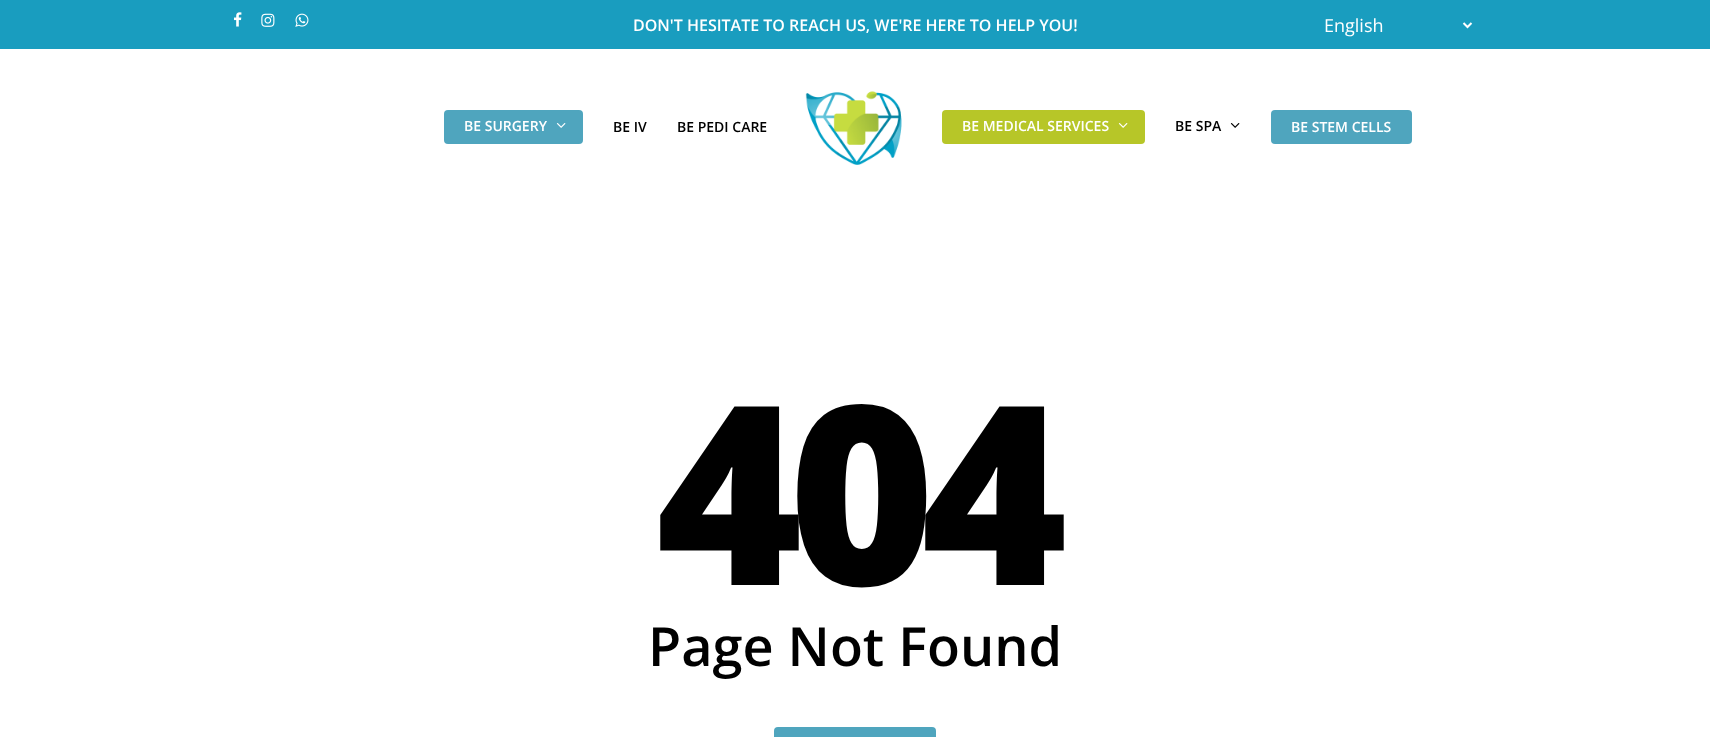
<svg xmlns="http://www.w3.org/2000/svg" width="1710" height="737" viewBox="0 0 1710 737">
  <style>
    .t1 { font: 600 16px Open Sans; fill: #fff; }
    .t2 { font: 18px Open Sans; fill: #fff; }
    .t3 { font: 600 14px Open Sans; fill: #fff; }
    .t4 { font: 600 14px Open Sans; fill: #000; }
    .t5 { font: 800 250px Open Sans; letter-spacing: -14px; fill: #000; }
    .t6 { font: 600 54px Open Sans; fill: #000; }
  </style>
  <rect width="100%" height="100%" fill="#fff"/>
  <rect x="0" y="0" width="1710" height="49" fill="#199dbf"/>
  <image x="234" y="12" width="8" height="15" href="images/1.png"/>
  <image x="261" y="13" width="14" height="14" href="images/2.png"/>
  <image x="295" y="13" width="14" height="14" href="images/3.png"/>
  <text x="633" y="31" class="t1">DON'T HESITATE TO REACH US, WE'RE HERE TO HELP YOU!</text>
  <path d="M1463.5 23L1467.5 27L1471.5 23" fill="none" stroke="#fff" stroke-width="2"/>
  <text x="1324" y="32" class="t2">English</text>
  <image x="805" y="91" width="97" height="74" href="images/4.png"/>
  <rect x="444" y="110" width="139" height="34" rx="4" fill="#4fa5be"/>
  <text x="464" y="131" class="t3">BE SURGERY</text>
  <image x="556" y="123" width="10" height="5" href="images/5.png"/>
  <text x="613" y="132" class="t4">BE IV</text>
  <text x="677" y="132" class="t4">BE PEDI CARE</text>
  <rect x="942" y="110" width="203" height="34" rx="4" fill="#b7c628"/>
  <text x="962" y="131" class="t3">BE MEDICAL SERVICES</text>
  <image x="1118" y="123" width="10" height="5" href="images/6.png"/>
  <text x="1175" y="131" class="t4">BE SPA</text>
  <image x="1230" y="123" width="10" height="5" href="images/7.png"/>
  <rect x="1271" y="110" width="141" height="34" rx="4" fill="#4fa5be"/>
  <text x="1291" y="132" class="t3">BE STEM CELLS</text>
  <text x="656" y="585" class="t5">404</text>
  <text x="648" y="666" class="t6">Page Not Found</text>
  <rect x="774" y="727" width="162" height="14" rx="4" fill="#4fa5be"/>
</svg>
